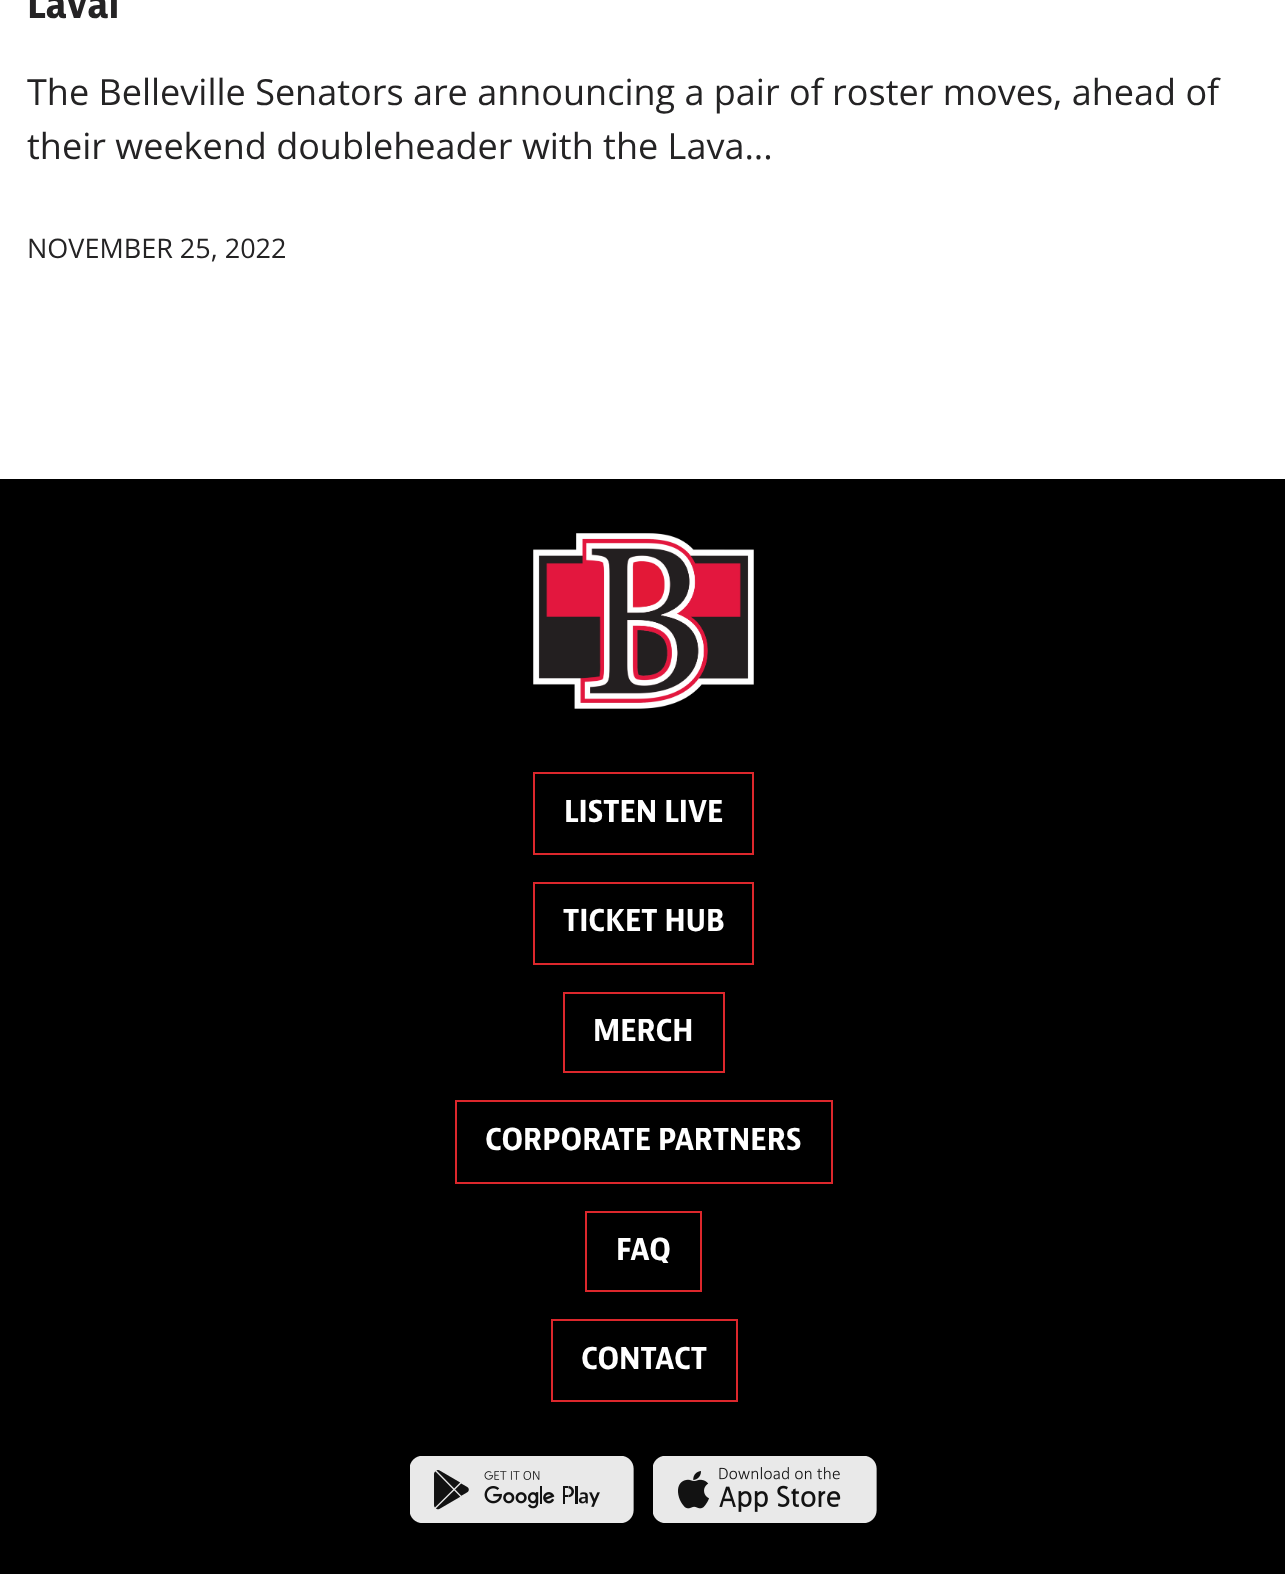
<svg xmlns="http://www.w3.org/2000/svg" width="1285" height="1574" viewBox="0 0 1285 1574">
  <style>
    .t1 { font: bold 40.5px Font; fill: #242324; }
    .t2 { font: 36px Open Sans; fill: #242324; }
    .t3 { font: 27px Open Sans; fill: #242324; }
    .t4 { font: bold 31.5px Font; fill: #fff; }
  </style>
  <rect width="100%" height="100%" fill="#000"/>
  <rect x="0" y="0" width="1285" height="479" fill="#fff"/>
  <text x="27" y="18" class="t1">Laval</text>
  <text x="27" y="105" class="t2">The Belleville Senators are announcing a pair of roster moves, ahead of</text>
  <text x="27" y="159" class="t2">their weekend doubleheader with the Lava...</text>
  <text x="27" y="258" class="t3">NOVEMBER 25, 2022</text>
  <image x="533" y="533" width="221" height="176" href="images/1.png"/>
  <rect x="534" y="773" width="219" height="81" fill="none" stroke="#dc272c" stroke-width="2"/>
  <text x="564" y="822" class="t4">LISTEN LIVE</text>
  <rect x="534" y="883" width="219" height="81" fill="none" stroke="#dc272c" stroke-width="2"/>
  <text x="563" y="931" class="t4">TICKET HUB</text>
  <rect x="564" y="993" width="160" height="79" fill="none" stroke="#dc272c" stroke-width="2"/>
  <text x="593" y="1041" class="t4">MERCH</text>
  <rect x="456" y="1101" width="376" height="82" fill="none" stroke="#dc272c" stroke-width="2"/>
  <text x="485" y="1150" class="t4">CORPORATE PARTNERS</text>
  <rect x="586" y="1212" width="115" height="79" fill="none" stroke="#dc272c" stroke-width="2"/>
  <text x="616" y="1260" class="t4">FAQ</text>
  <rect x="552" y="1320" width="185" height="81" fill="none" stroke="#dc272c" stroke-width="2"/>
  <text x="581" y="1369" class="t4">CONTACT</text>
  <image x="410" y="1456" width="224" height="67" href="images/2.png"/>
  <image x="653" y="1456" width="224" height="67" href="images/3.png"/>
</svg>
